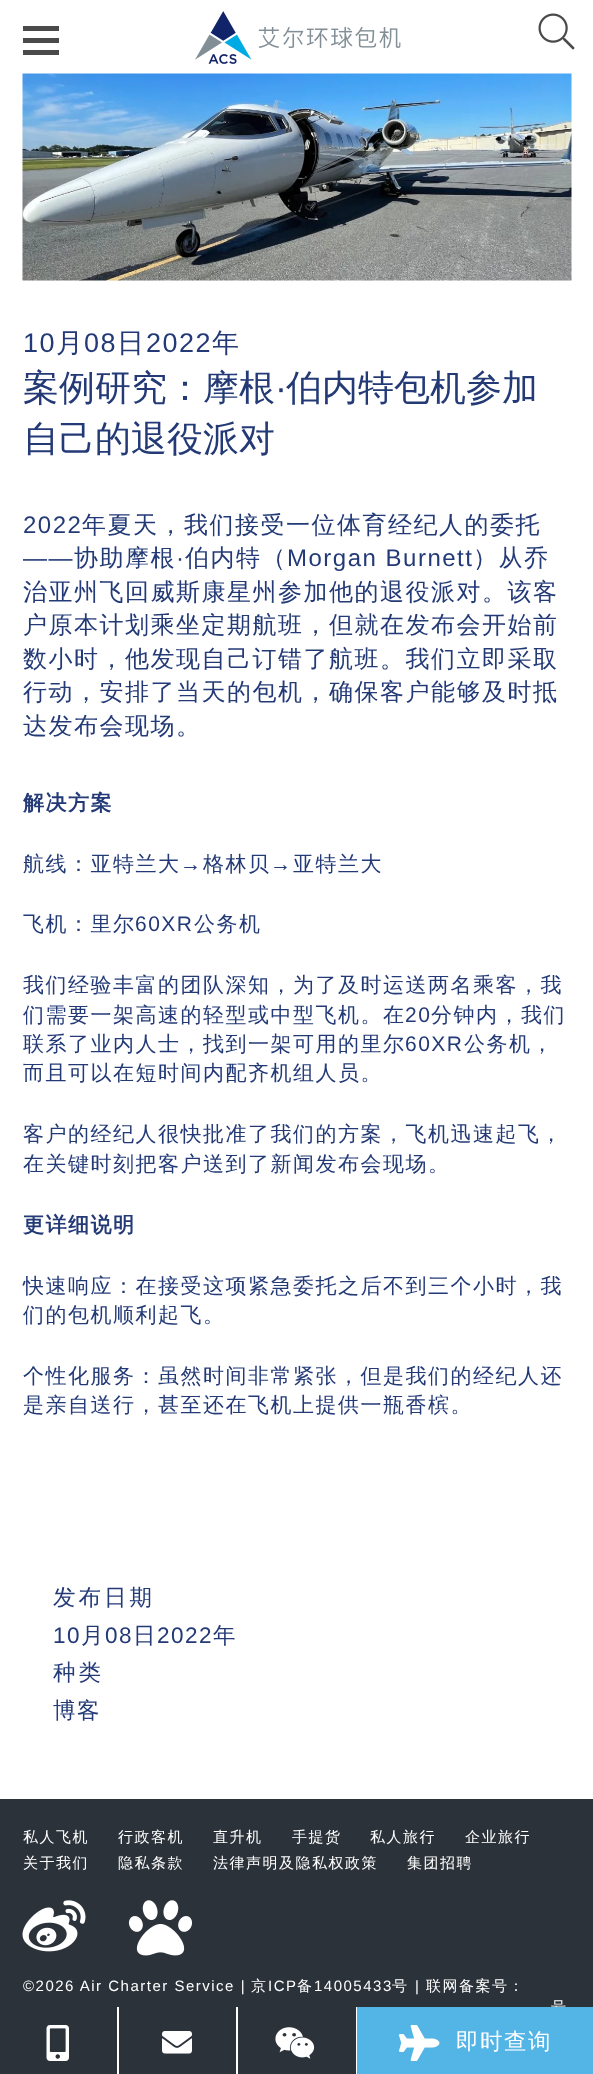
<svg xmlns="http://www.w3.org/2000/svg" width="593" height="2074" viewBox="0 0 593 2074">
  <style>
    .t1 { font: 27px Liberation Sans; letter-spacing: 1.5px; fill: #233a77; }
    .t2 { font: 500 27px WenQuanYi Zen Hei; letter-spacing: 1.5px; fill: #233a77; }
    .t3 { font: 500 36px WenQuanYi Zen Hei; fill: #233a77; }
    .t4 { font: 36px Liberation Sans; fill: #233a77; }
    .t5 { font: 24px Liberation Sans; letter-spacing: 1.5px; fill: #233a77; }
    .t6 { font: 500 24px WenQuanYi Zen Hei; letter-spacing: 1.5px; fill: #233a77; }
    .t7 { font: bold 21px WenQuanYi Zen Hei; letter-spacing: 1.5px; fill: #233a77; }
    .t8 { font: 500 21px WenQuanYi Zen Hei; letter-spacing: 1.5px; fill: #233a77; }
    .t9 { font: 21px Liberation Sans; letter-spacing: 1.5px; fill: #233a77; }
    .t10 { font: 500 22.5px WenQuanYi Zen Hei; letter-spacing: 3px; fill: #233a77; }
    .t11 { font: 22.5px Liberation Sans; letter-spacing: 1.5px; fill: #233a77; }
    .t12 { font: 500 22.5px WenQuanYi Zen Hei; letter-spacing: 1.5px; fill: #233a77; }
    .t13 { font: 500 15px WenQuanYi Zen Hei; letter-spacing: 1.5px; fill: #fff; }
    .t14 { font: 15px Liberation Sans; letter-spacing: 1.5px; fill: #fff; }
    .t15 { font: 500 22.5px WenQuanYi Zen Hei; letter-spacing: 1.5px; fill: #fff; }
  </style>
  <rect width="100%" height="100%" fill="#fff"/>
  <rect x="23" y="26" width="36" height="5" fill="#4a4a4a"/>
  <rect x="23" y="38" width="36" height="5" fill="#4a4a4a"/>
  <rect x="23" y="50" width="36" height="5" fill="#4a4a4a"/>
  <image x="195" y="11" width="206" height="53" href="images/1.png"/>
  <image x="538" y="13" width="37" height="37" href="images/2.png"/>
  <image x="22" y="73" width="550" height="208" href="images/3.png"/>
  <text x="23" y="352" class="t1">10</text>
  <text x="56" y="352" class="t2">月</text>
  <text x="84" y="352" class="t1">08</text>
  <text x="117" y="352" class="t2">日</text>
  <text x="146" y="352" class="t1">2022</text>
  <text x="212" y="352" class="t2">年</text>
  <text x="23" y="400" class="t3">案例研究：摩根</text>
  <text x="275" y="400" class="t4">·</text>
  <text x="286" y="400" class="t3">伯内特包机参加</text>
  <text x="23" y="451" class="t3">自己的退役派对</text>
  <text x="23" y="533" class="t5">2022</text>
  <text x="82" y="533" class="t6">年夏天，我们接受一位体育经纪人的委托</text>
  <text x="23" y="566" class="t5">——</text>
  <text x="74" y="566" class="t6">协助摩根</text>
  <text x="176" y="566" class="t5">·</text>
  <text x="185" y="566" class="t6">伯内特（</text>
  <text x="287" y="566" class="t5">Morgan Burnett</text>
  <text x="473" y="566" class="t6">）从乔</text>
  <text x="23" y="600" class="t6">治亚州飞回威斯康星州参加他的退役派对。该客</text>
  <text x="23" y="633" class="t6">户原本计划乘坐定期航班，但就在发布会开始前</text>
  <text x="23" y="667" class="t6">数小时，他发现自己订错了航班。我们立即采取</text>
  <text x="23" y="700" class="t6">行动，安排了当天的包机，确保客户能够及时抵</text>
  <text x="23" y="734" class="t6">达发布会现场。</text>
  <text x="23" y="810" class="t7">解决方案</text>
  <text x="23" y="871" class="t8">航线：亚特兰大</text>
  <text x="180" y="871" class="t9">→</text>
  <text x="203" y="871" class="t8">格林贝</text>
  <text x="270" y="871" class="t9">→</text>
  <text x="293" y="871" class="t8">亚特兰大</text>
  <text x="23" y="931" class="t8">飞机：里尔</text>
  <text x="135" y="931" class="t9">60XR</text>
  <text x="194" y="931" class="t8">公务机</text>
  <text x="23" y="992" class="t8">我们经验丰富的团队深知，为了及时运送两名乘客，我</text>
  <text x="23" y="1022" class="t8">们需要一架高速的轻型或中型飞机。在</text>
  <text x="405" y="1022" class="t9">20</text>
  <text x="431" y="1022" class="t8">分钟内，我们</text>
  <text x="23" y="1051" class="t8">联系了业内人士，找到一架可用的里尔</text>
  <text x="405" y="1051" class="t9">60XR</text>
  <text x="464" y="1051" class="t8">公务机，</text>
  <text x="23" y="1080" class="t8">而且可以在短时间内配齐机组人员。</text>
  <text x="23" y="1141" class="t8">客户的经纪人很快批准了我们的方案，飞机迅速起飞，</text>
  <text x="23" y="1171" class="t8">在关键时刻把客户送到了新闻发布会现场。</text>
  <text x="23" y="1232" class="t7">更详细说明</text>
  <text x="23" y="1293" class="t8">快速响应：在接受这项紧急委托之后不到三个小时，我</text>
  <text x="23" y="1322" class="t8">们的包机顺利起飞。</text>
  <text x="23" y="1383" class="t8">个性化服务：虽然时间非常紧张，但是我们的经纪人还</text>
  <text x="23" y="1412" class="t8">是亲自送行，甚至还在飞机上提供一瓶香槟。</text>
  <text x="53" y="1605" class="t10">发布日期</text>
  <text x="53" y="1643" class="t11">10</text>
  <text x="81" y="1643" class="t12">月</text>
  <text x="105" y="1643" class="t11">08</text>
  <text x="133" y="1643" class="t12">日</text>
  <text x="157" y="1643" class="t11">2022</text>
  <text x="213" y="1643" class="t12">年</text>
  <text x="53" y="1680" class="t10">种类</text>
  <text x="53" y="1718" class="t12">博客</text>
  <rect x="0" y="1799" width="593" height="208" fill="#2b323a"/>
  <text x="23" y="1842" class="t13">私人飞机</text>
  <text x="118" y="1842" class="t13">行政客机</text>
  <text x="213" y="1842" class="t13">直升机</text>
  <text x="292" y="1842" class="t13">手提货</text>
  <text x="370" y="1842" class="t13">私人旅行</text>
  <text x="465" y="1842" class="t13">企业旅行</text>
  <text x="23" y="1868" class="t13">关于我们</text>
  <text x="118" y="1868" class="t13">隐私条款</text>
  <text x="213" y="1868" class="t13">法律声明及隐私权政策</text>
  <text x="407" y="1868" class="t13">集团招聘</text>
  <image x="22" y="1900" width="64" height="52" href="images/4.png"/>
  <image x="128" y="1900" width="65" height="56" href="images/5.png"/>
  <text x="23" y="1991" class="t14">©2026 Air Charter Service |</text>
  <text x="251" y="1991" class="t13">京</text>
  <text x="268" y="1991" class="t14">ICP</text>
  <text x="297" y="1991" class="t13">备</text>
  <text x="314" y="1991" class="t14">14005433</text>
  <text x="392" y="1991" class="t13">号</text>
  <text x="415" y="1991" class="t14">|</text>
  <text x="426" y="1991" class="t13">联网备案号：</text>
  <text x="551" y="2012" class="t13">号</text>
  <rect x="0" y="2007" width="356" height="67" fill="#2b323a"/>
  <rect x="117" y="2007" width="2" height="67" fill="#fff"/>
  <image x="46" y="2025" width="23" height="36" href="images/6.png"/>
  <rect x="236" y="2007" width="2" height="67" fill="#fff"/>
  <image x="162" y="2031" width="30" height="23" href="images/7.png"/>
  <image x="275" y="2027" width="40" height="32" href="images/8.png"/>
  <rect x="357" y="2007" width="236" height="67" fill="#53b4e6"/>
  <image x="399" y="2025" width="41" height="36" href="images/9.png"/>
  <text x="456" y="2049" class="t15">即时查询</text>
</svg>
